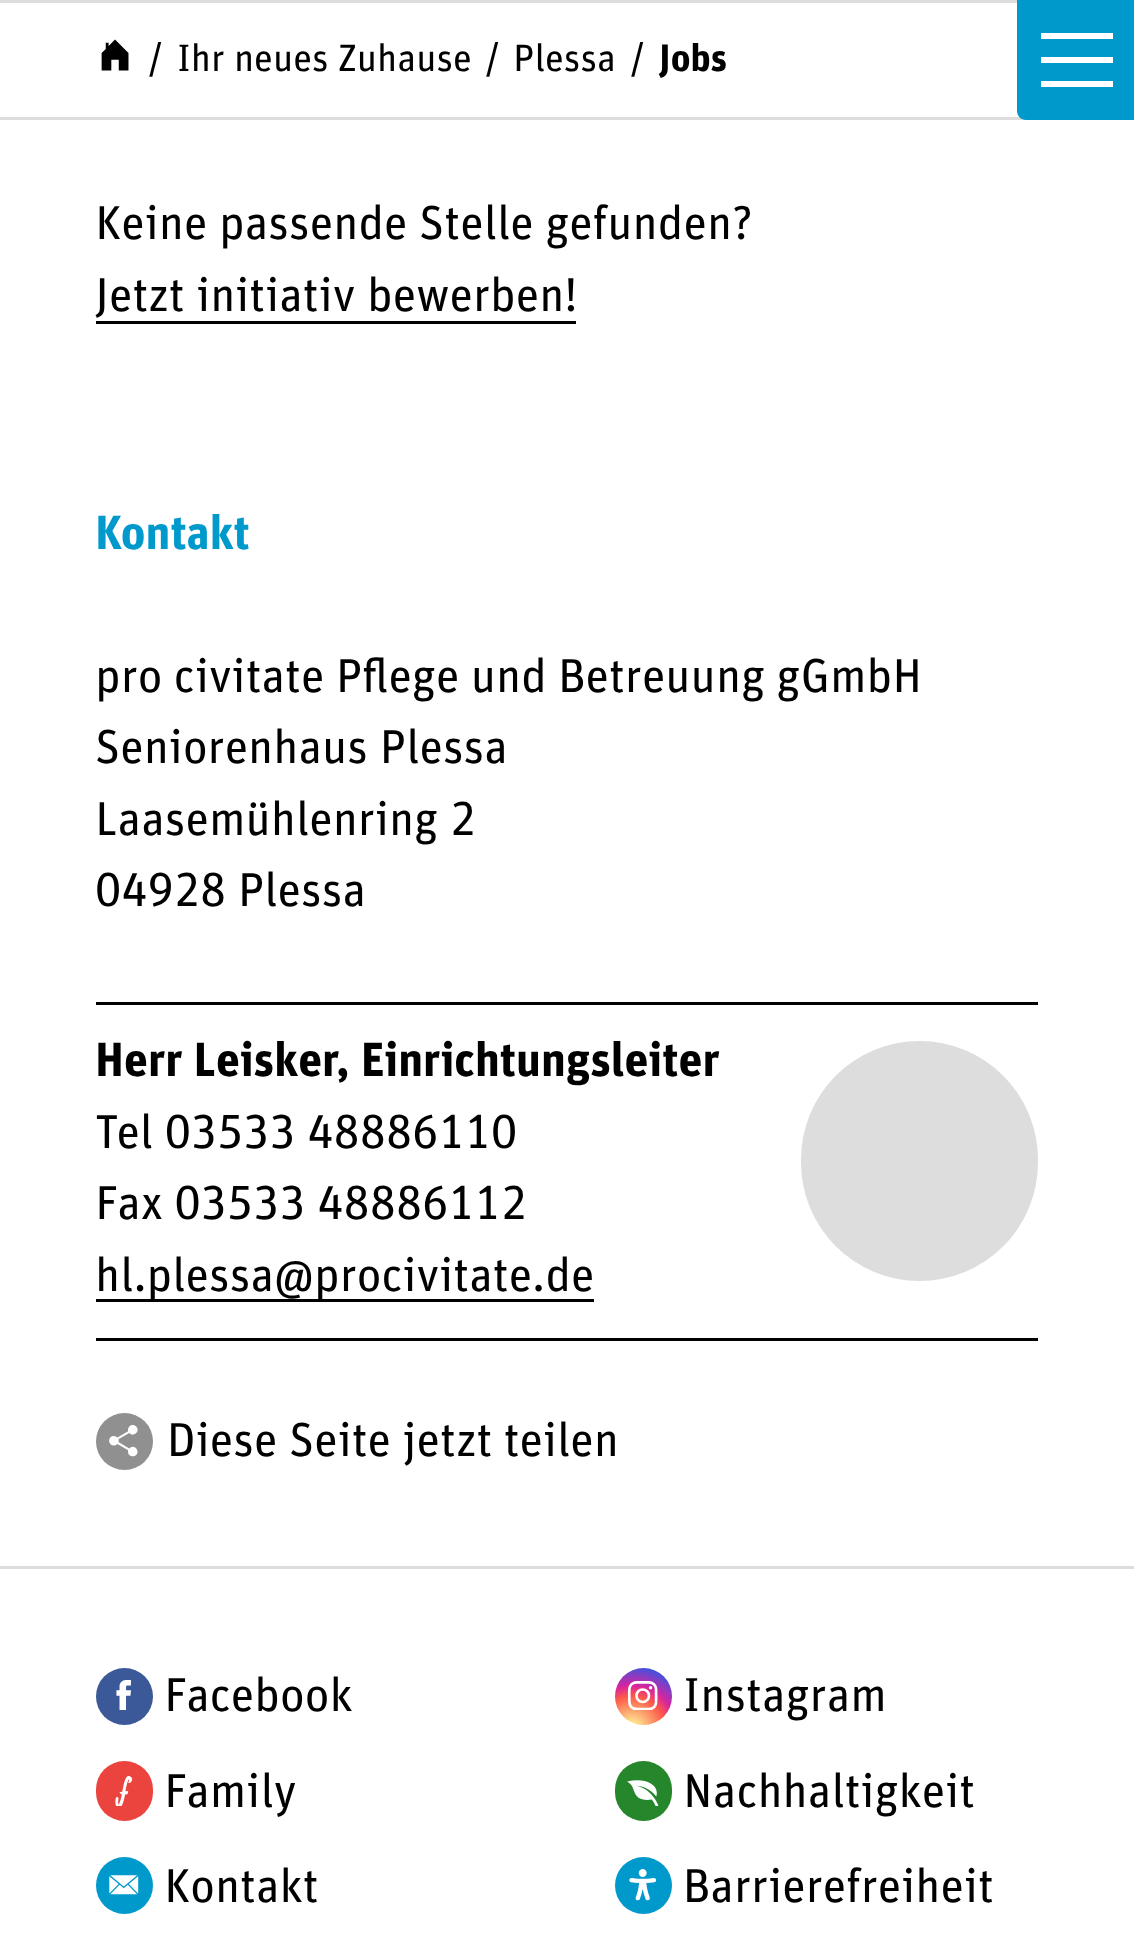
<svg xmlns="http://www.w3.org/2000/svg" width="1134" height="1949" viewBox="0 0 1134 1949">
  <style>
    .t1 { font: 38.25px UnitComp; fill: #000; }
    .t2 { font: bold 38.25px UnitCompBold; fill: #000; }
    .t3 { font: 47.7px UnitComp; fill: #000; }
    .t4 { font: bold 47.7px UnitCompBold; fill: #09c; }
    .t5 { font: bold 47.7px UnitCompBold; fill: #000; }
  </style>
  <defs>
    <radialGradient id="g1" gradientUnits="userSpaceOnUse" cx="632" cy="1729" r="73"><stop offset="0" stop-color="#fdf497"/><stop offset="0.05" stop-color="#fdf497"/><stop offset="0.45" stop-color="#fd5949"/><stop offset="0.6" stop-color="#d6249f"/><stop offset="0.9" stop-color="#285aeb"/></radialGradient>
  </defs>
  <rect width="100%" height="100%" fill="#fff"/>
  <rect x="0" y="0" width="1017" height="3" fill="#ddd"/>
  <rect x="0" y="117" width="1026" height="3" fill="#ddd"/>
  <image x="101" y="39" width="28" height="32" href="images/1.png"/>
  <text x="148" y="71" class="t1">/</text>
  <text x="177" y="71" class="t1">Ihr neues Zuhause</text>
  <text x="485" y="71" class="t1">/</text>
  <text x="513" y="71" class="t1">Plessa</text>
  <text x="630" y="71" class="t1">/</text>
  <text x="659" y="71" class="t2">Jobs</text>
  <text x="95" y="239" class="t3">Keine passende Stelle gefunden?</text>
  <text x="95" y="311" class="t3">Jetzt initiativ bewerben!</text>
  <rect x="96" y="321" width="480" height="3" fill="#000"/>
  <text x="95" y="549" class="t4">Kontakt</text>
  <text x="95" y="692" word-spacing="-0.25" class="t3">pro civitate Pflege und Betreuung gGmbH</text>
  <text x="95" y="763" class="t3">Seniorenhaus Plessa</text>
  <text x="95" y="835" class="t3">Laasemühlenring 2</text>
  <text x="95" y="906" class="t3">04928 Plessa</text>
  <rect x="96" y="1002" width="942" height="3" fill="#000"/>
  <rect x="96" y="1338" width="942" height="3" fill="#000"/>
  <text x="95" y="1076" class="t5">Herr Leisker, Einrichtungsleiter</text>
  <text x="95" y="1148" class="t3">Tel 03533 48886110</text>
  <text x="95" y="1219" class="t3">Fax 03533 48886112</text>
  <rect x="96" y="1299" width="498" height="3" fill="#000"/>
  <text x="95" y="1291" class="t3">hl.plessa@procivitate.de</text>
  <rect x="801" y="1041" width="237" height="240" rx="118.5" fill="#ddd"/>
  <circle cx="124.5" cy="1441.5" r="28.5" fill="#909090"/>
  <image x="109" y="1425" width="29" height="32" href="images/2.png"/>
  <text x="167" y="1456" class="t3">Diese Seite jetzt teilen</text>
  <path d="M1017 0H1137V120H1026C1021 120 1017 116 1017 111Z" fill="#09c"/>
  <rect x="1041" y="57" width="72" height="6" fill="#fff"/>
  <rect x="1041" y="33" width="72" height="6" fill="#fff"/>
  <rect x="1041" y="81" width="72" height="6" fill="#fff"/>
  <rect x="0" y="1566" width="1134" height="3" fill="#ddd"/>
  <circle cx="124.5" cy="1696.5" r="28.5" fill="#3b5998"/>
  <image x="116" y="1680" width="15" height="30" href="images/3.png"/>
  <text x="164" y="1711" class="t3">Facebook</text>
  <circle cx="643.5" cy="1696.5" r="28.5" fill="url(#g1)"/>
  <image x="627" y="1681" width="31" height="29" href="images/4.png"/>
  <text x="683" y="1711" class="t3">Instagram</text>
  <rect x="96" y="1761" width="57" height="60" rx="28.5" fill="#eb443f"/>
  <image x="115" y="1776" width="18" height="30" href="images/5.png"/>
  <text x="164" y="1807" class="t3">Family</text>
  <rect x="615" y="1761" width="57" height="60" rx="28.5" fill="#26862b"/>
  <image x="627" y="1780" width="32" height="26" href="images/6.png"/>
  <text x="683" y="1807" class="t3">Nachhaltigkeit</text>
  <circle cx="124.5" cy="1885.5" r="28.5" fill="#09c"/>
  <image x="109" y="1875" width="30" height="20" href="images/7.png"/>
  <text x="164" y="1902" class="t3">Kontakt</text>
  <circle cx="643.5" cy="1885.5" r="28.5" fill="#09c"/>
  <image x="629" y="1869" width="28" height="32" href="images/8.png"/>
  <text x="683" y="1902" class="t3">Barrierefreiheit</text>
</svg>
